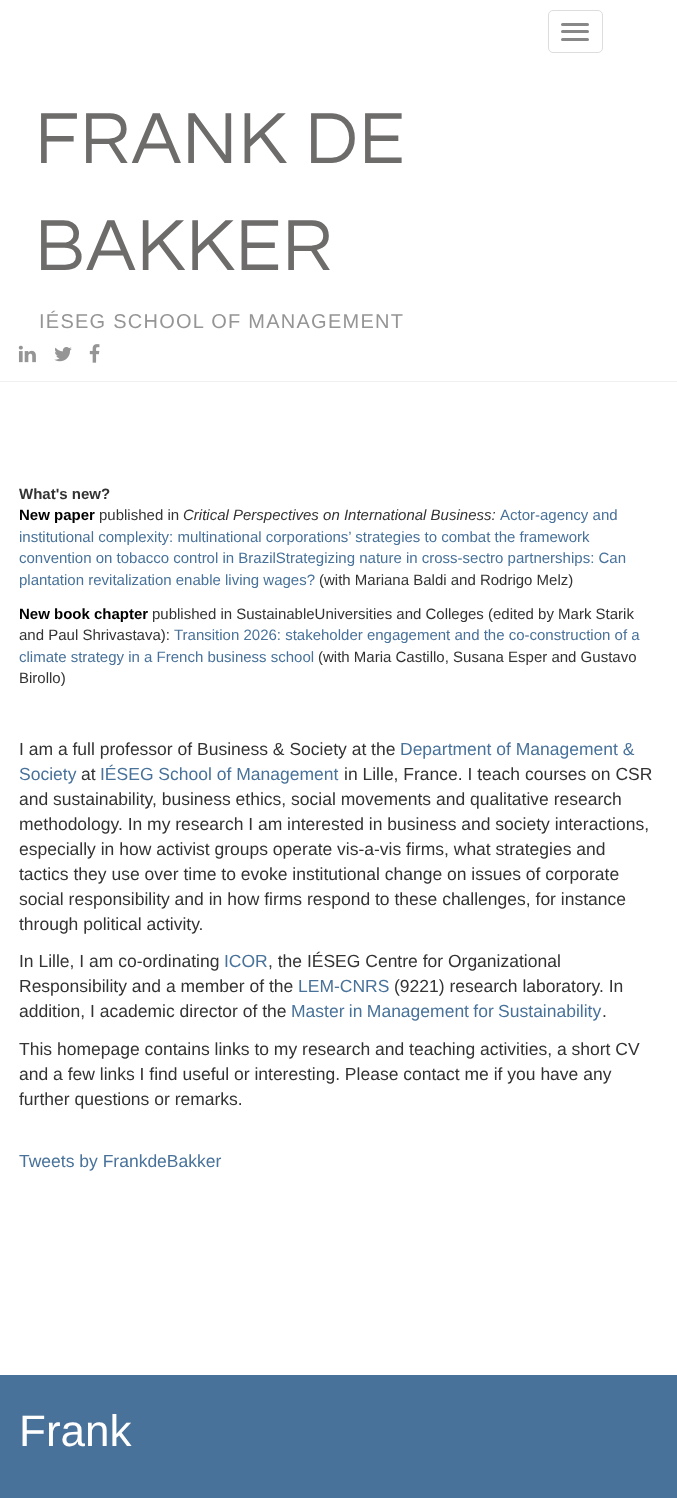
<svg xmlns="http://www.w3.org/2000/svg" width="677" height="1498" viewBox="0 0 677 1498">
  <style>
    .t1 { font: 75px Questrial; letter-spacing: 1.25px; fill: #6e6b6b; }
    .t2 { font: 20px Liberation Sans; letter-spacing: 1.25px; fill: #959595; }
    .t3 { font: bold 15px Liberation Sans; fill: #333; }
    .t4 { font: bold 15px Liberation Sans; fill: #000; }
    .t5 { font: 15px Liberation Sans; fill: #333; }
    .t6 { font: italic 15px Liberation Sans; fill: #333; }
    .t7 { font: 15px Liberation Sans; fill: #48729a; }
    .t8 { font: 17.5px Liberation Sans; fill: #333; }
    .t9 { font: 17.5px Liberation Sans; fill: #48729a; }
    .t10 { font: 44px Liberation Sans; fill: #fff; }
  </style>
  <rect width="100%" height="100%" fill="#fff"/>
  <rect x="548.5" y="10.5" width="54" height="42" rx="4.5" fill="none" stroke="#ddd"/>
  <rect x="561" y="23" width="28" height="3" rx="1.5" fill="#888"/>
  <rect x="561" y="30" width="28" height="3" rx="1.5" fill="#888"/>
  <rect x="561" y="38" width="28" height="3" rx="1.5" fill="#888"/>
  <text x="35" y="163" class="t1">FRANK DE</text>
  <text x="35" y="270" class="t1">BAKKER</text>
  <text x="39" y="328" class="t2">IÉSEG SCHOOL OF MANAGEMENT</text>
  <image x="18" y="345" width="18" height="18" href="images/1.png"/>
  <image x="54" y="347" width="18" height="15" href="images/2.png"/>
  <image x="89" y="344" width="11" height="19" href="images/3.png"/>
  <rect x="0" y="381" width="677" height="1" fill="#f0f0f0"/>
  <text x="19" y="499" class="t3">What's new?</text>
  <text x="19" y="520" class="t4">New paper</text>
  <text x="99" y="520" class="t5">published in</text>
  <text x="183" y="520" class="t6">Critical Perspectives on International Business:</text>
  <text x="500" y="520" class="t7">Actor-agency and</text>
  <text x="19" y="542" class="t7">institutional complexity: multinational corporations’ strategies to combat the framework</text>
  <text x="19" y="563" class="t7">convention on tobacco control in BrazilStrategizing nature in cross-sectro partnerships: Can</text>
  <text x="19" y="585" class="t7">plantation revitalization enable living wages?</text>
  <text x="319" y="585" class="t5">(with Mariana Baldi and Rodrigo Melz)</text>
  <text x="19" y="619" class="t4">New book chapter</text>
  <text x="152" y="619" class="t5">published in SustainableUniversities and Colleges (edited by Mark Starik</text>
  <text x="19" y="640" class="t5">and Paul Shrivastava):</text>
  <text x="174" y="640" class="t7">Transition 2026: stakeholder engagement and the co-construction of a</text>
  <text x="19" y="662" class="t7">climate strategy in a French business school</text>
  <text x="318" y="662" class="t5">(with Maria Castillo, Susana Esper and Gustavo</text>
  <text x="19" y="683" class="t5">Birollo)</text>
  <text x="19" y="755" class="t8">I am a full professor of Business &amp; Society at the</text>
  <text x="400" y="755" class="t9">Department of Management &amp;</text>
  <text x="19" y="780" class="t9">Society</text>
  <text x="81" y="780" class="t8">at</text>
  <text x="100" y="780" class="t9">IÉSEG School of Management</text>
  <text x="344" y="780" class="t8">in Lille, France. I teach courses on CSR</text>
  <text x="19" y="805" class="t8">and sustainability, business ethics, social movements and qualitative research</text>
  <text x="19" y="830" class="t8">methodology. In my research I am interested in business and society interactions,</text>
  <text x="19" y="855" class="t8">especially in how activist groups operate vis-a-vis firms, what strategies and</text>
  <text x="19" y="880" class="t8">tactics they use over time to evoke institutional change on issues of corporate</text>
  <text x="19" y="905" class="t8">social responsibility and in how firms respond to these challenges, for instance</text>
  <text x="19" y="930" class="t8">through political activity.</text>
  <text x="19" y="967" class="t8">In Lille, I am co-ordinating</text>
  <text x="224" y="967" class="t9">ICOR</text>
  <text x="268" y="967" class="t8">, the IÉSEG Centre for Organizational</text>
  <text x="19" y="992" class="t8">Responsibility and a member of the</text>
  <text x="298" y="992" class="t9">LEM-CNRS</text>
  <text x="394" y="992" class="t8">(9221) research laboratory. In</text>
  <text x="19" y="1017" class="t8">addition, I academic director of the</text>
  <text x="291" y="1017" word-spacing="-0.5" class="t9">Master in Management for Sustainability</text>
  <text x="602" y="1017" class="t8">.</text>
  <text x="19" y="1055" class="t8">This homepage contains links to my research and teaching activities, a short CV</text>
  <text x="19" y="1080" class="t8">and a few links I find useful or interesting. Please contact me if you have any</text>
  <text x="19" y="1105" class="t8">further questions or remarks.</text>
  <text x="19" y="1167" class="t9">Tweets by FrankdeBakker</text>
  <rect x="0" y="1375" width="677" height="123" fill="#48729a"/>
  <text x="19" y="1446" class="t10">Frank</text>
</svg>
